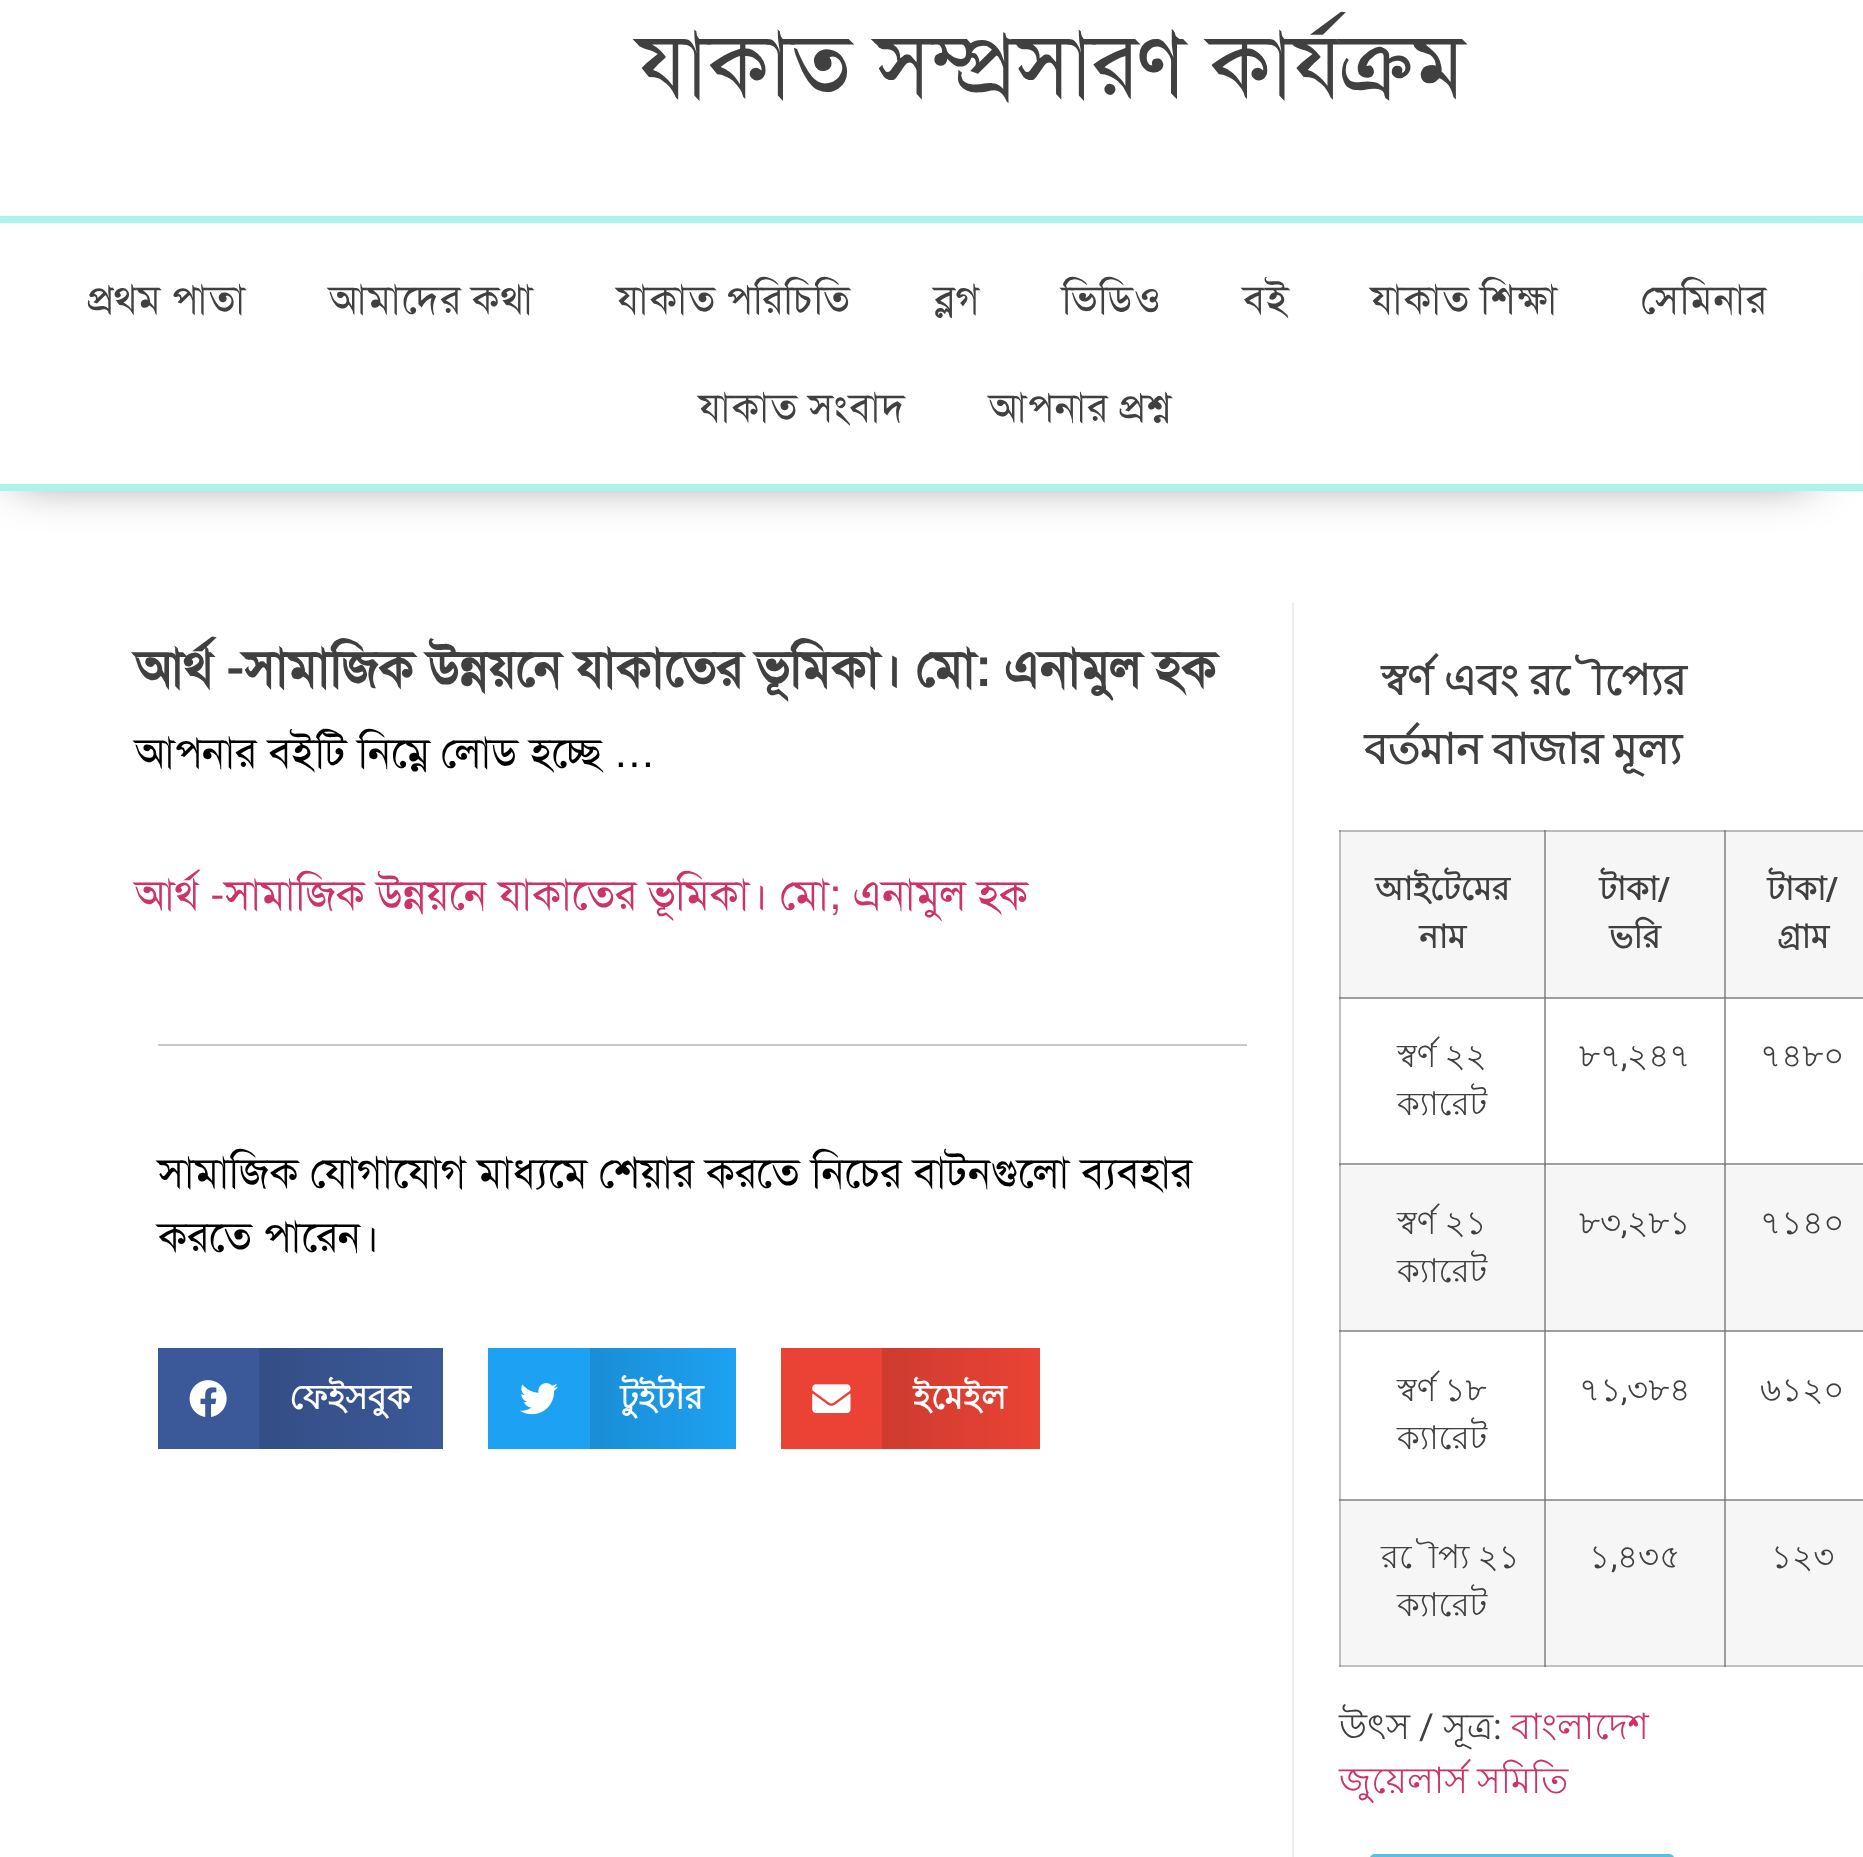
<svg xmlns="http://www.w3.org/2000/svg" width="1863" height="1857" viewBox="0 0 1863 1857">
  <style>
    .t1 { font: 90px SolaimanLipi; fill: #404040; }
    .t2 { font: 40.5px SolaimanLipi; letter-spacing: 1.1px; fill: #404040; }
    .t3 { font: bold 51.75px SolaimanLipi; fill: #404040; }
    .t4 { font: 42.75px SolaimanLipi; fill: #000; }
    .t5 { font: 42.75px Liberation Sans; fill: #000; }
    .t6 { font: 42.75px SolaimanLipi; fill: #c36; }
    .t7 { font: bold 34px Lohit Bengali; fill: #fff; }
    .t8 { font: bold 42.75px Lohit Bengali; fill: #404040; }
    .t9 { font: bold 32.5px Lohit Bengali; fill: #404040; }
    .t10 { font: bold 32.5px Roboto; fill: #404040; }
    .t11 { font: 32.5px Lohit Bengali; fill: #404040; }
    .t12 { font: 32.5px Roboto; fill: #404040; }
    .t13 { font: 36px Lohit Bengali; fill: #404040; }
    .t14 { font: 36px Roboto; fill: #404040; }
    .t15 { font: 36px Lohit Bengali; fill: #c36; }
  </style>
  <defs>
    <linearGradient id="g1" gradientUnits="userSpaceOnUse" x1="259" y1="1398" x2="443" y2="1398"><stop offset="0" stop-color="#344e86"/><stop offset="1" stop-color="#3b5998"/></linearGradient>
    <linearGradient id="g2" gradientUnits="userSpaceOnUse" x1="590" y1="1398" x2="736" y2="1398"><stop offset="0" stop-color="#1a8ed5"/><stop offset="1" stop-color="#1da1f2"/></linearGradient>
    <linearGradient id="g3" gradientUnits="userSpaceOnUse" x1="882" y1="1398" x2="1040" y2="1398"><stop offset="0" stop-color="#ce3b2f"/><stop offset="1" stop-color="#ea4335"/></linearGradient>
  </defs>
  <rect width="100%" height="100%" fill="#fff"/>
  <rect x="1339" y="830" width="2" height="837" fill="#c0c0c0"/>
  <rect x="1339" y="830" width="2" height="2" fill="#a0a0a0"/>
  <rect x="1339" y="997" width="2" height="2" fill="#888"/>
  <rect x="1544" y="997" width="2" height="169" fill="#a0a0a0"/>
  <rect x="1724" y="997" width="2" height="169" fill="#a0a0a0"/>
  <rect x="1339" y="1163" width="2" height="3" fill="#a0a0a0"/>
  <rect x="1339" y="1163" width="207" height="2" fill="#a0a0a0"/>
  <rect x="1339" y="1163" width="2" height="2" fill="#888"/>
  <rect x="1544" y="1163" width="2" height="3" fill="#888"/>
  <rect x="1544" y="1163" width="182" height="2" fill="#a0a0a0"/>
  <rect x="1544" y="1163" width="2" height="2" fill="#818181"/>
  <rect x="1724" y="1163" width="2" height="3" fill="#888"/>
  <rect x="1339" y="1330" width="2" height="2" fill="#888"/>
  <rect x="1544" y="1330" width="2" height="171" fill="#a0a0a0"/>
  <rect x="1724" y="1330" width="2" height="171" fill="#a0a0a0"/>
  <rect x="1339" y="1665" width="524" height="2" fill="#c0c0c0"/>
  <rect x="1339" y="1665" width="2" height="2" fill="#a0a0a0"/>
  <rect x="1339" y="1499" width="2" height="2" fill="#888"/>
  <rect x="1544" y="1665" width="2" height="2" fill="#888"/>
  <text x="638" y="95" class="t1">যাকাত সম্প্রসারণ কার্যক্রম</text>
  <rect x="16" y="272" width="1795" height="207" fill="#00000080" filter="blur(23.5px)"/>
  <rect x="0" y="224" width="1859" height="260" fill="#fff"/>
  <rect x="0" y="216" width="1863" height="7" fill="#aaf4ec"/>
  <rect x="0" y="484" width="1863" height="7" fill="#aaf4ec"/>
  <text x="87" y="313" word-spacing="-2" class="t2">প্রথম পাতা</text>
  <text x="329" y="313" word-spacing="-2" class="t2">আমাদের কথা</text>
  <text x="617" y="313" word-spacing="-2" class="t2">যাকাত পরিচিতি</text>
  <text x="934" y="313" class="t2">ব্লগ</text>
  <text x="1062" y="313" class="t2">ভিডিও</text>
  <text x="1243" y="313" class="t2">বই</text>
  <text x="1371" y="313" word-spacing="-2" class="t2">যাকাত শিক্ষা</text>
  <text x="1641" y="313" class="t2">সেমিনার</text>
  <text x="699" y="421" word-spacing="-2" class="t2">যাকাত সংবাদ</text>
  <text x="989" y="421" word-spacing="-2" class="t2">আপনার প্রশ্ন</text>
  <text x="135" y="686" class="t3">আর্থ -সামাজিক উন্নয়নে যাকাতের ভূমিকা। মো: এনামুল হক</text>
  <text x="135" y="767" class="t4">আপনার বইটি নিম্নে লোড হচ্ছে</text>
  <text x="613" y="767" class="t5">…</text>
  <text x="135" y="909" class="t6">আর্থ -সামাজিক উন্নয়নে যাকাতের ভূমিকা। মো; এনামুল হক</text>
  <rect x="158" y="1044" width="1089" height="2" fill="#c9c9c9"/>
  <text x="158" y="1187" class="t4">সামাজিক যোগাযোগ মাধ্যমে শেয়ার করতে নিচের বাটনগুলো ব্যবহার</text>
  <text x="158" y="1251" class="t4">করতে পারেন।</text>
  <rect x="158" y="1348" width="101" height="101" fill="#3b5998"/>
  <image x="189" y="1380" width="38" height="37" href="images/1.png"/>
  <rect x="259" y="1348" width="184" height="101" fill="url(#g1)"/>
  <text x="289" y="1409" class="t7">ফেইসবুক</text>
  <rect x="488" y="1348" width="102" height="101" fill="#1da1f2"/>
  <image x="520" y="1383" width="38" height="32" href="images/2.png"/>
  <rect x="590" y="1348" width="146" height="101" fill="url(#g2)"/>
  <text x="620" y="1409" class="t7">টুইটার</text>
  <rect x="781" y="1348" width="101" height="101" fill="#ea4335"/>
  <image x="812" y="1384" width="39" height="29" href="images/3.png"/>
  <rect x="882" y="1348" width="158" height="101" fill="url(#g3)"/>
  <text x="913" y="1409" class="t7">ইমেইল</text>
  <rect x="1292" y="603" width="2" height="1254" fill="#ededed"/>
  <text x="1381" y="695" word-spacing="-1" class="t8">স্বর্ণ এবং রৌপ্যের</text>
  <text x="1364" y="764" word-spacing="-1" class="t8">বর্তমান বাজার মূল্য</text>
  <rect x="1341" y="832" width="203" height="165" fill="#f6f6f6"/>
  <rect x="1341" y="830" width="203" height="2" fill="#bbb"/>
  <rect x="1341" y="997" width="203" height="2" fill="#9e9e9e"/>
  <text x="1375" y="900" class="t9">আইটেমের</text>
  <text x="1419" y="948" class="t9">নাম</text>
  <rect x="1546" y="832" width="178" height="165" fill="#f6f6f6"/>
  <rect x="1544" y="830" width="2" height="169" fill="#9e9e9e"/>
  <rect x="1544" y="830" width="182" height="2" fill="#bbb"/>
  <rect x="1544" y="830" width="2" height="2" fill="#888"/>
  <rect x="1724" y="830" width="2" height="169" fill="#9e9e9e"/>
  <rect x="1544" y="997" width="319" height="2" fill="#9e9e9e"/>
  <rect x="1544" y="997" width="2" height="2" fill="#818181"/>
  <text x="1599" y="900" class="t9">টাকা</text>
  <text x="1658" y="900" class="t10">/</text>
  <text x="1609" y="948" class="t9">ভরি</text>
  <rect x="1726" y="832" width="137" height="165" fill="#f6f6f6"/>
  <rect x="1724" y="830" width="139" height="2" fill="#bbb"/>
  <rect x="1724" y="830" width="2" height="2" fill="#888"/>
  <text x="1767" y="900" class="t9">টাকা</text>
  <text x="1826" y="900" class="t10">/</text>
  <text x="1777" y="948" class="t9">গ্রাম</text>
  <text x="1397" y="1067" word-spacing="-1" class="t11">স্বর্ণ ২২</text>
  <text x="1397" y="1115" class="t11">ক্যারেট</text>
  <text x="1579" y="1067" class="t11">৮৭</text>
  <text x="1621" y="1067" class="t12">,</text>
  <text x="1627" y="1067" class="t11">২৪৭</text>
  <rect x="1724" y="997" width="2" height="2" fill="#818181"/>
  <text x="1760" y="1067" class="t11">৭৪৮০</text>
  <rect x="1341" y="1166" width="203" height="164" fill="#f6f6f6"/>
  <rect x="1341" y="1330" width="203" height="2" fill="#9e9e9e"/>
  <text x="1397" y="1234" word-spacing="-1" class="t11">স্বর্ণ ২১</text>
  <text x="1397" y="1282" class="t11">ক্যারেট</text>
  <rect x="1546" y="1166" width="178" height="164" fill="#f6f6f6"/>
  <rect x="1544" y="1166" width="2" height="166" fill="#9e9e9e"/>
  <rect x="1724" y="1166" width="2" height="166" fill="#9e9e9e"/>
  <rect x="1544" y="1330" width="319" height="2" fill="#9e9e9e"/>
  <rect x="1544" y="1330" width="2" height="2" fill="#818181"/>
  <text x="1579" y="1234" class="t11">৮৩</text>
  <text x="1621" y="1234" class="t12">,</text>
  <text x="1627" y="1234" class="t11">২৮১</text>
  <rect x="1726" y="1166" width="137" height="164" fill="#f6f6f6"/>
  <rect x="1724" y="1163" width="139" height="2" fill="#a0a0a0"/>
  <rect x="1724" y="1163" width="2" height="2" fill="#818181"/>
  <text x="1760" y="1234" class="t11">৭১৪০</text>
  <text x="1397" y="1401" word-spacing="-1" class="t11">স্বর্ণ ১৮</text>
  <text x="1397" y="1449" class="t11">ক্যারেট</text>
  <text x="1579" y="1401" class="t11">৭১</text>
  <text x="1621" y="1401" class="t12">,</text>
  <text x="1627" y="1401" class="t11">৩৮৪</text>
  <rect x="1724" y="1330" width="2" height="2" fill="#818181"/>
  <text x="1760" y="1401" class="t11">৬১২০</text>
  <rect x="1341" y="1501" width="203" height="164" fill="#f6f6f6"/>
  <rect x="1341" y="1499" width="203" height="2" fill="#9e9e9e"/>
  <text x="1381" y="1568" word-spacing="-1" class="t11">রৌপ্য ২১</text>
  <text x="1397" y="1616" class="t11">ক্যারেট</text>
  <rect x="1546" y="1501" width="178" height="164" fill="#f6f6f6"/>
  <rect x="1544" y="1499" width="2" height="166" fill="#9e9e9e"/>
  <rect x="1544" y="1499" width="182" height="2" fill="#9e9e9e"/>
  <rect x="1544" y="1499" width="2" height="2" fill="#818181"/>
  <rect x="1724" y="1499" width="2" height="166" fill="#9e9e9e"/>
  <text x="1589" y="1568" class="t11">১</text>
  <text x="1611" y="1568" class="t12">,</text>
  <text x="1617" y="1568" class="t11">৪৩৫</text>
  <rect x="1726" y="1501" width="137" height="164" fill="#f6f6f6"/>
  <rect x="1724" y="1499" width="139" height="2" fill="#9e9e9e"/>
  <rect x="1724" y="1499" width="2" height="2" fill="#818181"/>
  <rect x="1724" y="1665" width="2" height="2" fill="#888"/>
  <text x="1771" y="1568" class="t11">১২৩</text>
  <text x="1339" y="1739" class="t13">উৎস</text>
  <text x="1419" y="1739" class="t14">/</text>
  <text x="1443" y="1739" class="t13">সূত্র</text>
  <text x="1493" y="1739" class="t14">:</text>
  <text x="1511" y="1739" class="t15">বাংলাদেশ</text>
  <text x="1339" y="1793" word-spacing="-1" class="t15">জুয়েলার্স সমিতি</text>
  <rect x="1370" y="1854" width="304" height="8" rx="5" fill="#5bc0de"/>
</svg>
